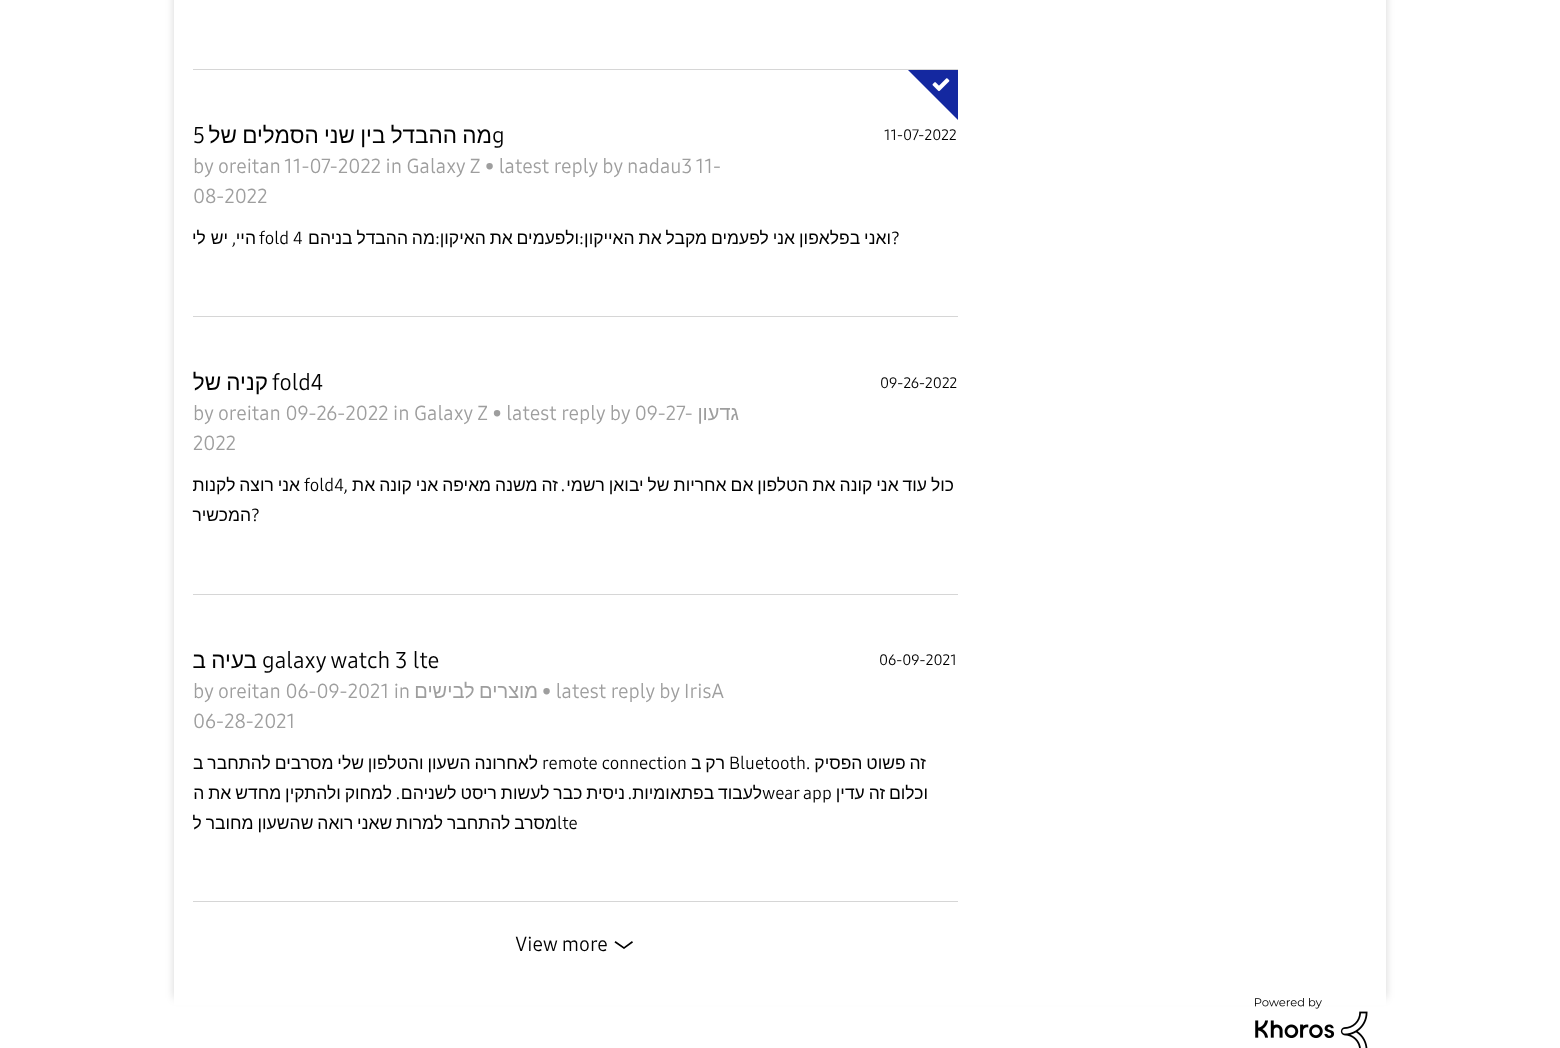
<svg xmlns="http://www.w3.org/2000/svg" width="1560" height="1048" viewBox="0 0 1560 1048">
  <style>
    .t1 { font: 15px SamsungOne; fill: #000; }
    .t2 { font: 22.5px Liberation Sans; direction: rtl; fill: #000; }
    .t3 { font: 22.5px SamsungOne; fill: #000; }
    .t4 { font: 20px SamsungOne; fill: #9e9e9e; }
    .t5 { font: 17.5px SamsungOne; fill: #000; }
    .t6 { font: 17.5px Liberation Sans; direction: rtl; fill: #000; }
    .t7 { font: 17.5px SamsungOne; direction: rtl; fill: #000; }
    .t8 { font: 20px Liberation Sans; direction: rtl; fill: #9e9e9e; }
    .t9 { font: 20px SamsungOne; fill: #000; }
  </style>
  <defs>
    <clipPath id="clip1"><path d="M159 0H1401V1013H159ZM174-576H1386V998H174Z" clip-rule="evenodd"/></clipPath>
    <clipPath id="clip2"><rect x="193" y="471" width="765" height="60"/></clipPath>
  </defs>
  <rect width="100%" height="100%" fill="#fff"/>
  <g clip-path="url(#clip1)">
    <rect x="174" y="-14" width="1212" height="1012" fill="#00000029" filter="blur(4.5px)"/>
  </g>
  <rect x="193" y="69" width="765" height="1" fill="#d6d6d6"/>
  <rect x="193" y="316" width="765" height="1" fill="#d6d6d6"/>
  <path d="M908 70H958V120Z" fill="#1428a0"/>
  <image x="932" y="78" width="18" height="14" href="images/1.png"/>
  <text x="884" y="140" class="t1">11-07-2022</text>
  <text x="492" y="143" word-spacing="-1" class="t2">מה ההבדל בין שני הסמלים של</text>
  <text x="492" y="143" class="t3">g</text>
  <text x="193" y="143" class="t3">5</text>
  <text x="193" y="173" class="t4">by oreitan 11-07-2022 in Galaxy Z • latest reply by nadau3 11-</text>
  <text x="193" y="203" class="t4">08-2022</text>
  <text x="891" y="244" class="t5">?</text>
  <text x="891" y="244" word-spacing="-1" class="t6">ואני בפלאפון</text>
  <text x="795" y="244" word-spacing="-1" class="t6">אני לפעמים מקבל את האייקון</text>
  <text x="584" y="244" class="t7">:</text>
  <text x="579" y="244" word-spacing="-1" class="t6">ולפעמים את האיקון</text>
  <text x="440" y="244" class="t7">:</text>
  <text x="435" y="244" word-spacing="-1" class="t6">מה ההבדל בניהם</text>
  <text x="259" y="244" class="t5">fold 4</text>
  <text x="256" y="244" class="t6">היי</text>
  <text x="236" y="244" class="t7">,</text>
  <text x="228" y="244" class="t6">יש לי</text>
  <rect x="193" y="594" width="765" height="1" fill="#d6d6d6"/>
  <text x="880" y="388" class="t1">09-26-2022</text>
  <text x="272" y="390" class="t3">fold4</text>
  <text x="268" y="390" word-spacing="-1" class="t2">קניה של</text>
  <text x="739" y="420" class="t8">גדעון</text>
  <text x="193" y="420" class="t4">by oreitan 09-26-2022 in Galaxy Z • latest reply by 09-27-</text>
  <text x="193" y="450" class="t4">2022</text>
  <g clip-path="url(#clip2)">
    <text x="954" y="491" word-spacing="-0.9" class="t6">כול עוד אני קונה את הטלפון אם אחריות של יבואן רשמי</text>
  </g>
  <text x="558" y="491" word-spacing="-0.9" class="t6">זה משנה מאיפה אני קונה את</text>
  <text x="565" y="491" class="t7">.</text>
  <text x="304" y="491" class="t5">fold4,</text>
  <text x="300" y="491" word-spacing="-1" class="t6">אני רוצה לקנות</text>
  <text x="251" y="521" class="t5">?</text>
  <text x="251" y="521" class="t6">המכשיר</text>
  <rect x="193" y="901" width="765" height="1" fill="#d6d6d6"/>
  <text x="879" y="665" class="t1">06-09-2021</text>
  <text x="262" y="668" class="t3">galaxy watch 3 lte</text>
  <text x="257" y="668" word-spacing="-1" class="t2">בעיה ב</text>
  <text x="542" y="698" class="t4">• latest reply by IrisA</text>
  <text x="538" y="698" word-spacing="-1" class="t8">מוצרים לבישים</text>
  <text x="193" y="698" class="t4">by oreitan 06-09-2021 in</text>
  <text x="193" y="728" class="t4">06-28-2021</text>
  <text x="926" y="769" word-spacing="-1" class="t6">זה פשוט הפסיק</text>
  <text x="729" y="769" class="t5">Bluetooth.</text>
  <text x="725" y="769" word-spacing="-1" class="t6">רק ב</text>
  <text x="542" y="769" class="t5">remote connection</text>
  <text x="538" y="769" word-spacing="-1" class="t6">לאחרונה השעון והטלפון שלי מסרבים להתחבר ב</text>
  <text x="928" y="799" word-spacing="-1" class="t6">וכלום זה עדין</text>
  <text x="762" y="799" word-spacing="-1" class="t6">לעבוד בפתאומיות</text>
  <text x="762" y="799" class="t5">wear app</text>
  <text x="632" y="799" class="t7">.</text>
  <text x="625" y="799" word-spacing="-1" class="t6">ניסית כבר לעשות ריסט לשניהם</text>
  <text x="400" y="799" class="t7">.</text>
  <text x="392" y="799" word-spacing="-1" class="t6">למחוק ולהתקין מחדש את ה</text>
  <text x="557" y="829" word-spacing="-1" class="t6">מסרב להתחבר למרות שאני רואה שהשעון מחובר ל</text>
  <text x="557" y="829" class="t5">lte</text>
  <path d="M632 941L633 942.5L624 949L614.5 942.5L615.5 941L624 947Z" fill="#000"/>
  <text x="515" y="951" class="t9">View more</text>
  <rect x="174" y="998" width="1212" height="7" fill="#fff"/>
  <image x="1255" y="998" width="113" height="50" href="images/2.png"/>
</svg>
